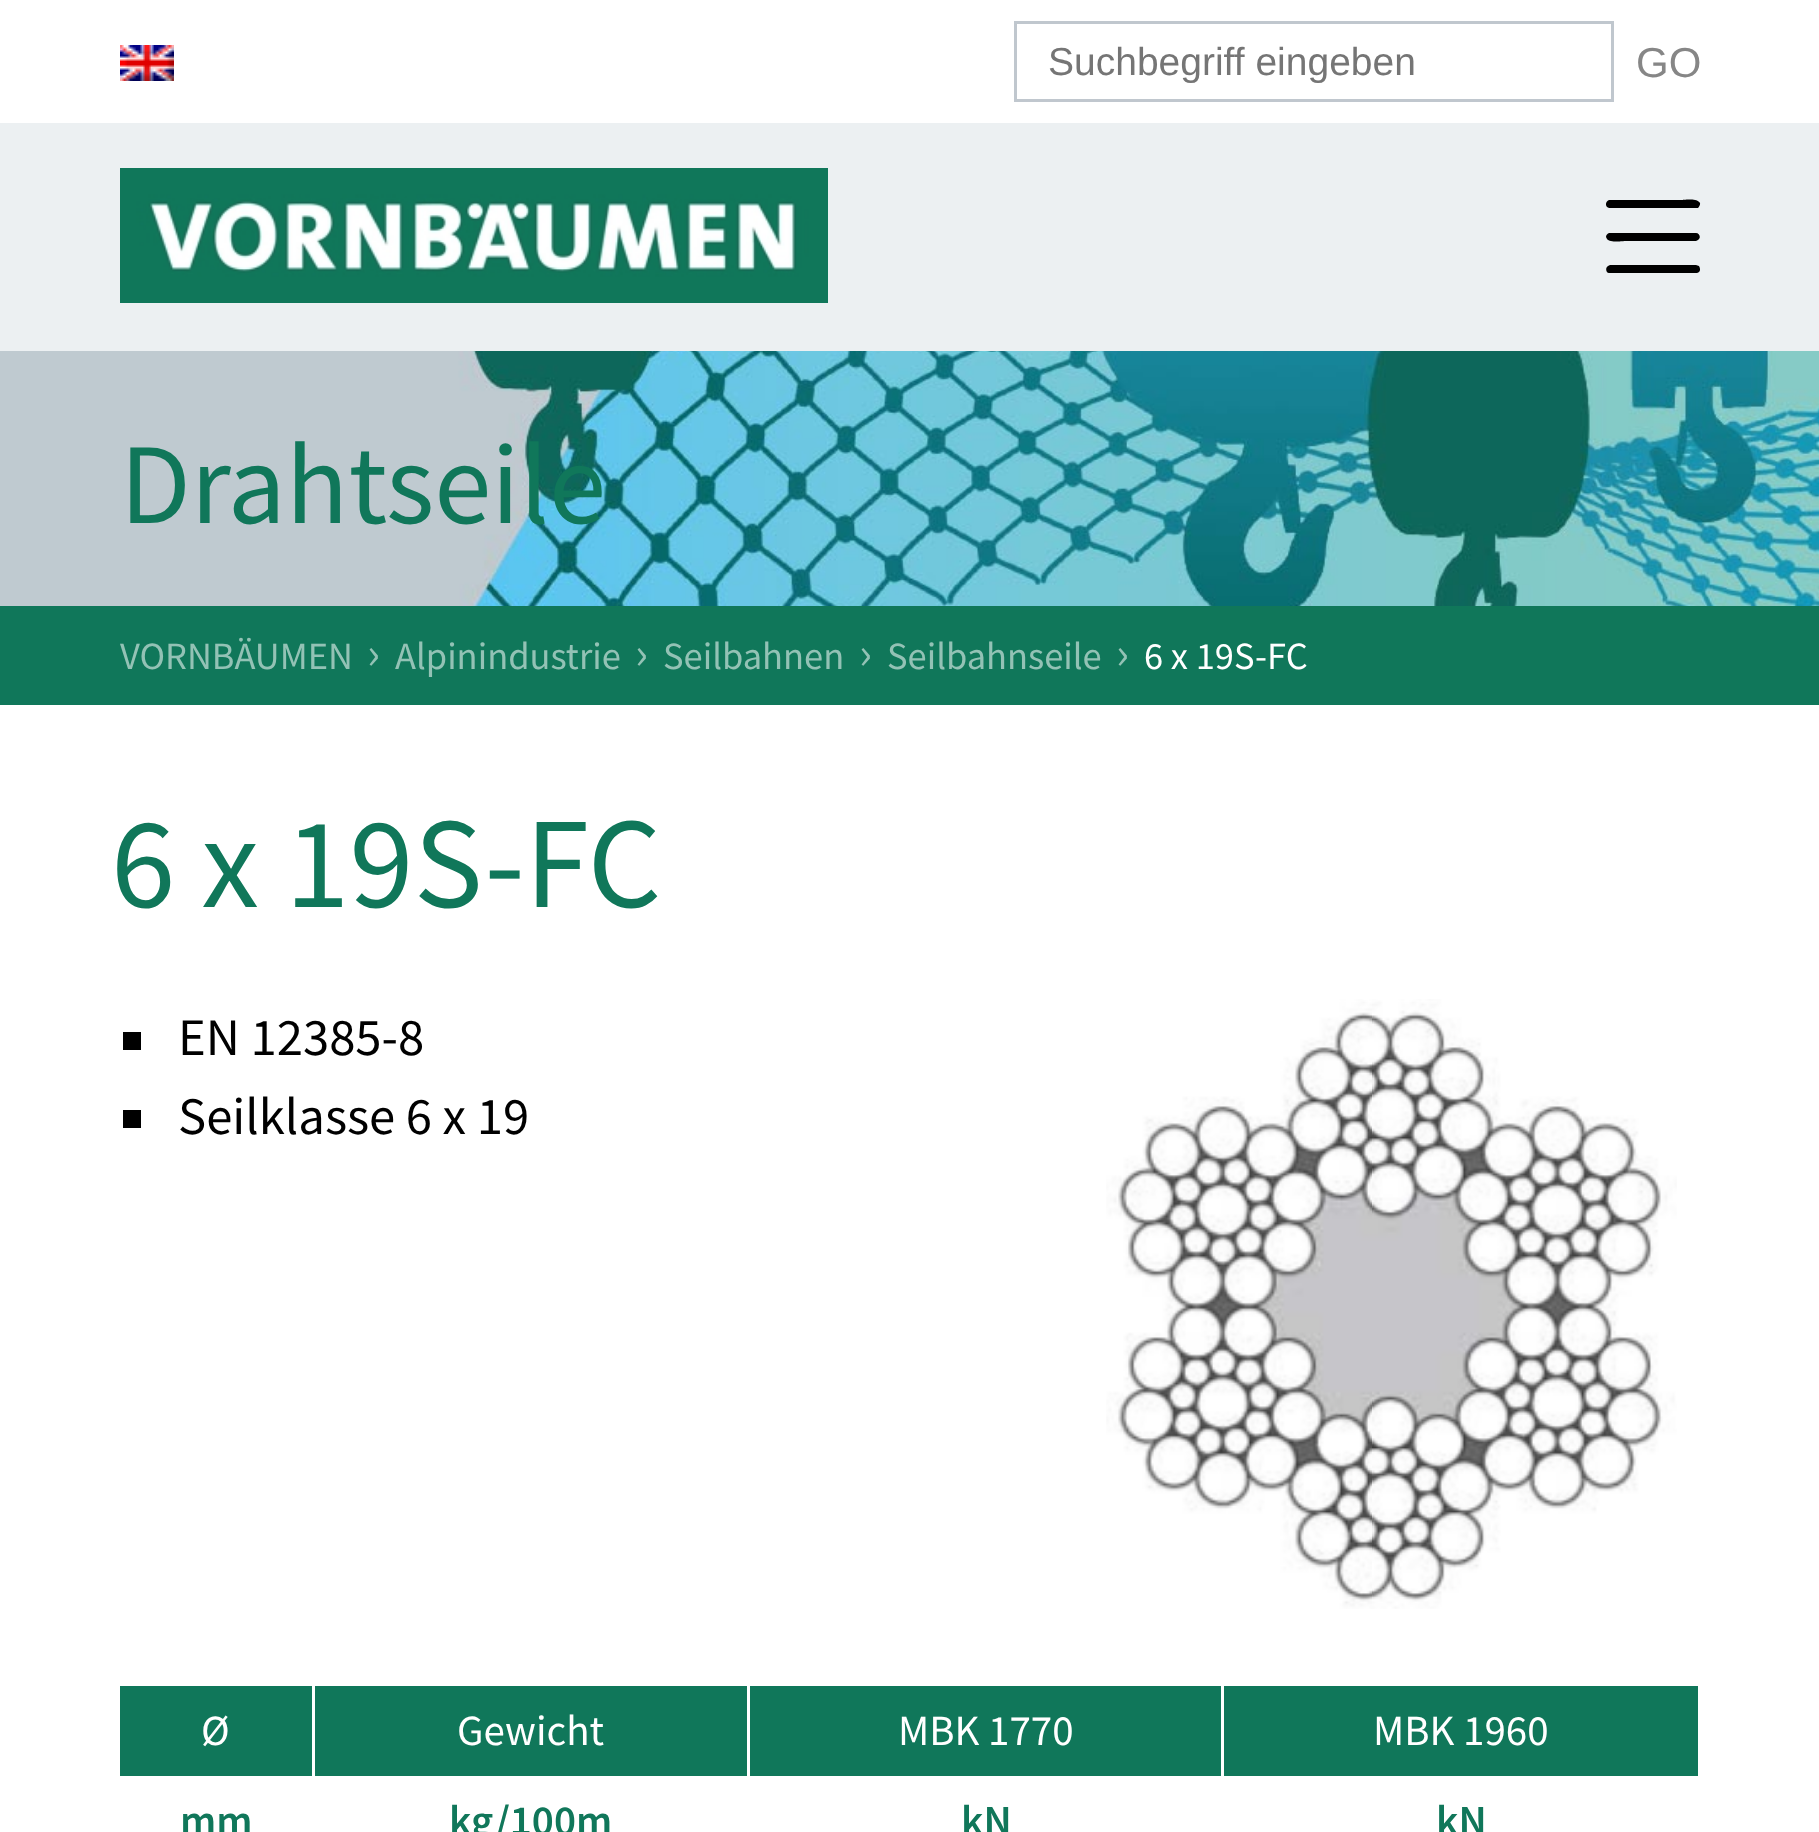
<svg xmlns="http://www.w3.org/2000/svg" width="1819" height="1832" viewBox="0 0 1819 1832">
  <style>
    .t1 { font: 39px Liberation Sans; fill: #757575; }
    .t2 { font: 42px Liberation Sans; fill: #868686; }
    .t3 { font: 115px Source Sans Pro; fill: #10775a; }
    .t4 { font: 38.5px Source Sans Pro; fill: #93c2b5; }
    .t5 { font: 48px Source Sans Pro; fill: #93c2b5; }
    .t6 { font: 38.5px Source Sans Pro; fill: #fff; }
    .t7 { font: 129.5px Source Sans Pro; fill: #10775a; }
    .t8 { font: 52.75px Source Sans Pro; fill: #000; }
    .t9 { font: 43px Source Sans Pro; fill: #fff; }
    .t10 { font: 600 43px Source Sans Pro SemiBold; fill: #10775a; }
  </style>
  <rect width="100%" height="100%" fill="#fff"/>
  <rect x="0" y="123" width="1819" height="228" fill="#ecf0f2"/>
  <image x="120" y="45" width="54" height="36" href="images/1.png"/>
  <rect x="1015.5" y="22.5" width="597" height="78" fill="none" stroke="#c0c7ce" stroke-width="3"/>
  <text x="1048" y="75" class="t1">Suchbegriff eingeben</text>
  <text x="1636" y="77" class="t2">GO</text>
  <image x="120" y="168" width="708" height="135" href="images/2.png"/>
  <path d="M1607 207C1605 205 1606 201 1609 200H1682C1682 200 1696 198 1699 202C1701 203 1700 206 1698 208H1696H1609ZM1696 233C1699 233 1701 237 1699 239L1698 240L1696 241H1625C1624 241 1610 243 1607 239L1606 237C1606 235 1607 234 1609 233ZM1699 266C1701 269 1700 273 1697 273H1609C1606 273 1605 268 1608 266L1610 265H1696Z" fill="#000"/>
  <image x="0" y="351" width="1819" height="255" href="images/3.png"/>
  <text x="120" y="523" class="t3">Drahtseile</text>
  <rect x="0" y="606" width="1819" height="99" fill="#10775a"/>
  <text x="120" y="669" class="t4">VORNBÄUMEN</text>
  <text x="367" y="669" class="t5">›</text>
  <text x="395" y="669" class="t4">Alpinindustrie</text>
  <text x="635" y="669" class="t5">›</text>
  <text x="663" y="669" class="t4">Seilbahnen</text>
  <text x="859" y="669" class="t5">›</text>
  <text x="887" y="669" class="t4">Seilbahnseile</text>
  <text x="1116" y="669" class="t5">›</text>
  <text x="1144" y="669" class="t6">6 x 19S-FC</text>
  <text x="111" y="907" class="t7">6 x 19S-FC</text>
  <rect x="123" y="1032" width="18" height="18" fill="#000"/>
  <text x="178" y="1055" class="t8">EN 12385-8</text>
  <rect x="123" y="1110" width="18" height="18" fill="#000"/>
  <text x="178" y="1134" class="t8">Seilklasse 6 x 19</text>
  <image x="1106" y="999" width="571" height="610" href="images/4.png"/>
  <rect x="120" y="1686" width="192" height="90" fill="#10775a"/>
  <text x="201" y="1745" class="t9">Ø</text>
  <rect x="315" y="1686" width="432" height="90" fill="#10775a"/>
  <text x="457" y="1745" class="t9">Gewicht</text>
  <rect x="750" y="1686" width="471" height="90" fill="#10775a"/>
  <text x="898" y="1745" class="t9">MBK 1770</text>
  <rect x="1224" y="1686" width="474" height="90" fill="#10775a"/>
  <text x="1373" y="1745" class="t9">MBK 1960</text>
  <text x="180" y="1835" class="t10">mm</text>
  <text x="449" y="1835" class="t10">kg/100m</text>
  <text x="961" y="1835" class="t10">kN</text>
  <text x="1436" y="1835" class="t10">kN</text>
</svg>
